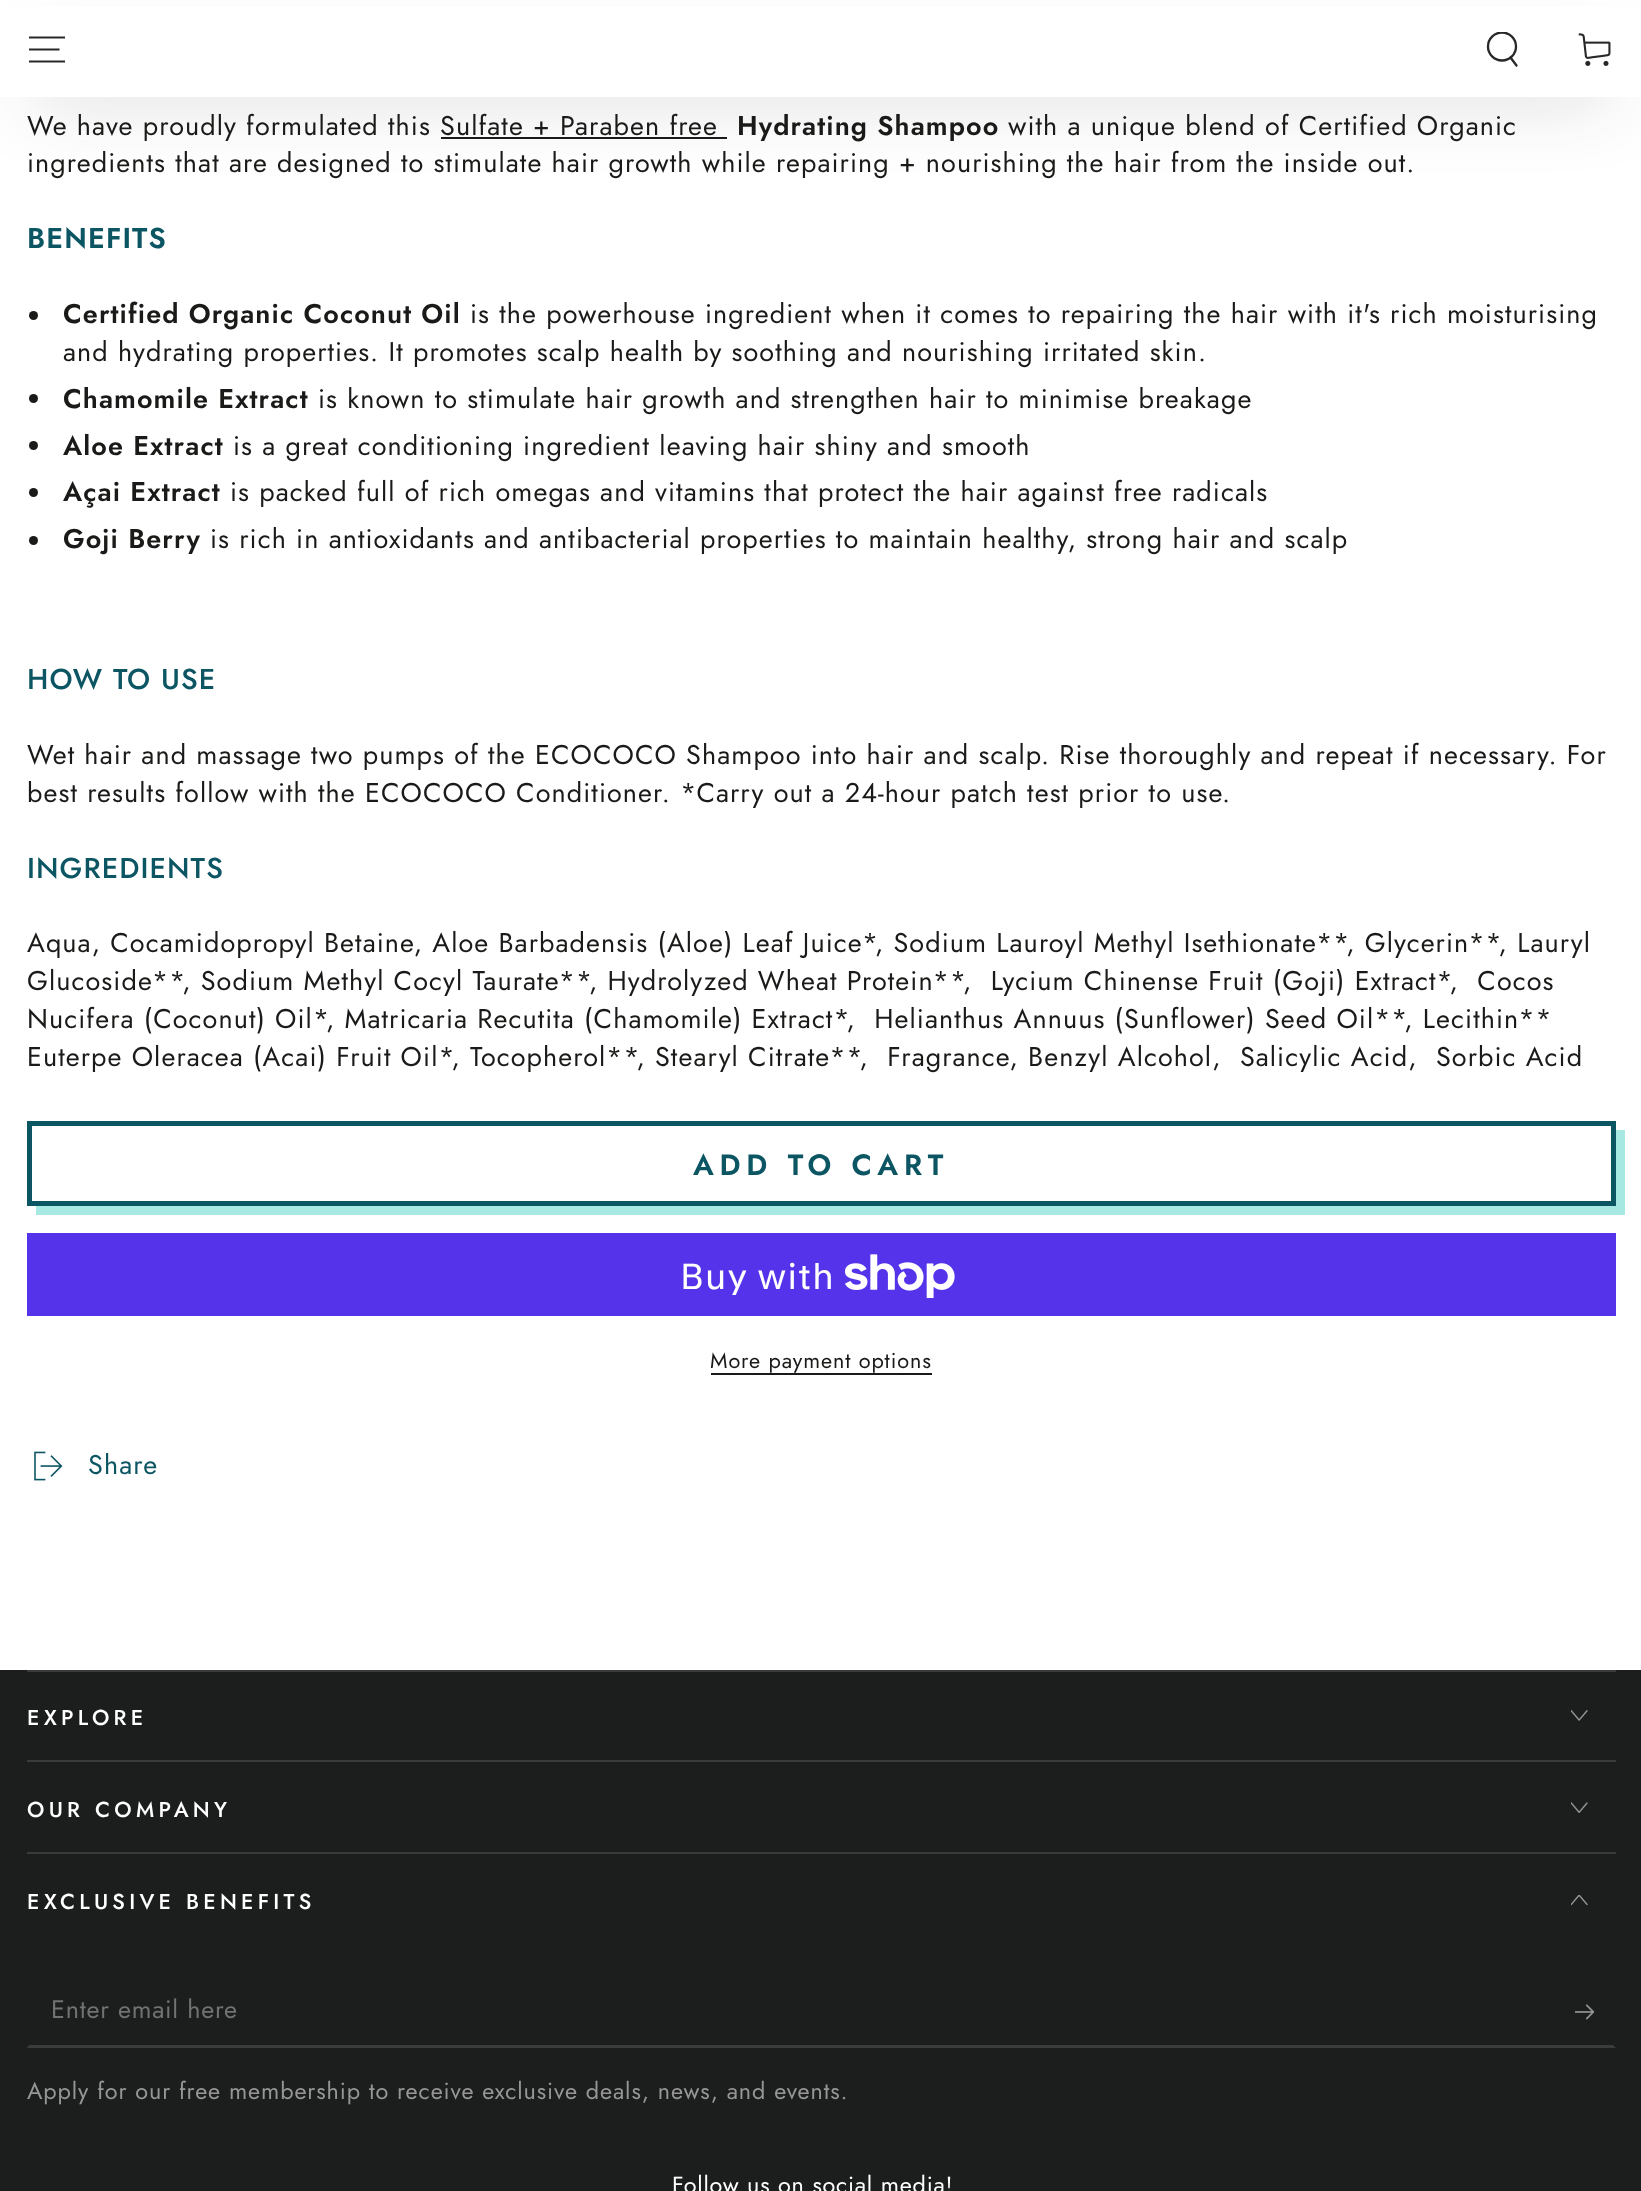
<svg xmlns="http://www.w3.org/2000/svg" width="1641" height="2191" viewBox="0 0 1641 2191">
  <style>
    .t1 { font: 27px Jost; letter-spacing: 1.08px; fill: #1a1b18; }
    .t2 { font: 600 27px Jost; letter-spacing: 1.08px; fill: #1a1b18; }
    .t3 { font: 600 28.75px Jost; letter-spacing: 1.1px; fill: #0c5563; }
    .t4 { font: 500 28.75px Jost; letter-spacing: 1.1px; fill: #0c5563; }
    .t5 { font: 600 29.25px Jost; letter-spacing: 5.8px; fill: #0c5563; }
    .t6 { font: 36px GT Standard; letter-spacing: 1.08px; fill: #fff; }
    .t7 { font: 21.6px Jost; letter-spacing: 0.9px; fill: #1a1b18; }
    .t8 { font: 27px Jost; letter-spacing: 1.08px; fill: #0c5563; }
    .t9 { font: 500 21.6px Jost; letter-spacing: 4.3px; fill: #fff; }
    .t10 { font: 25.25px Jost; letter-spacing: 0.75px; fill: #717272; }
    .t11 { font: 23.4px Jost; letter-spacing: 0.9px; fill: #969696; }
    .t12 { font: 23.4px Jost; letter-spacing: 0.75px; fill: #fff; }
  </style>
  <defs>
    <clipPath id="clip1"><rect x="1485" y="32" width="36" height="36"/></clipPath>
  </defs>
  <rect width="100%" height="100%" fill="#fff"/>
  <rect x="441" y="137" width="286" height="2" fill="#1a1b18"/>
  <rect x="27" y="61" width="1589" height="36" rx="18" fill="#1a1b1833" filter="blur(36px)"/>
  <rect x="0" y="6" width="1641" height="91" fill="#fff"/>
  <path d="M29 61.5H65M29 49.5H59.5M29 37.5H65" fill="none" stroke="#282828" stroke-width="2"/>
  <g clip-path="url(#clip1)">
    <circle cx="1502" cy="46.5" r="14" fill="none" stroke="#282828" stroke-width="2.3"/>
  </g>
  <path d="M1510.5 57.5L1516.5 65.5" fill="none" stroke="#282828" stroke-width="2.3" stroke-linecap="round"/>
  <image x="1578" y="33" width="33" height="33" href="images/1.png"/>
  <text x="27" y="135" class="t1">We have proudly formulated this Sulfate + Paraben free</text>
  <text x="737" y="135" class="t2">Hydrating Shampoo</text>
  <text x="1008" y="135" class="t1">with a unique blend of Certified Organic</text>
  <text x="27" y="172" class="t1">ingredients that are designed to stimulate hair growth while repairing + nourishing the hair from the inside out.</text>
  <text x="27" y="248" class="t3">BENEFITS</text>
  <circle cx="33.5" cy="315.5" r="4.5" fill="#1a1b18"/>
  <text x="63" y="323" class="t2">Certified Organic Coconut Oil</text>
  <text x="470" y="323" class="t1">is the powerhouse ingredient when it comes to repairing the hair with it's rich moisturising</text>
  <text x="63" y="361" class="t1">and hydrating properties. It promotes scalp health by soothing and nourishing irritated skin.</text>
  <circle cx="33.5" cy="398.5" r="4.5" fill="#1a1b18"/>
  <text x="63" y="408" class="t2">Chamomile Extract</text>
  <text x="318" y="408" class="t1">is known to stimulate hair growth and strengthen hair to minimise breakage</text>
  <circle cx="33.5" cy="445.5" r="4.5" fill="#1a1b18"/>
  <text x="63" y="455" class="t2">Aloe Extract</text>
  <text x="233" y="455" class="t1">is a great conditioning ingredient leaving hair shiny and smooth</text>
  <circle cx="33.5" cy="492.5" r="4.5" fill="#1a1b18"/>
  <text x="63" y="501" class="t2">Açai Extract</text>
  <text x="230" y="501" class="t1">is packed full of rich omegas and vitamins that protect the hair against free radicals</text>
  <circle cx="33.5" cy="540.5" r="4.5" fill="#1a1b18"/>
  <text x="63" y="548" class="t2">Goji Berry</text>
  <text x="210" y="548" class="t1">is rich in antioxidants and antibacterial properties to maintain healthy, strong hair and scalp</text>
  <text x="27" y="689" class="t4">HOW TO USE</text>
  <text x="27" y="764" class="t1">Wet hair and massage two pumps of the ECOCOCO Shampoo into hair and scalp. Rise thoroughly and repeat if necessary. For</text>
  <text x="27" y="802" class="t1">best results follow with the ECOCOCO Conditioner. *Carry out a 24-hour patch test prior to use.</text>
  <text x="27" y="878" class="t4">INGREDIENTS</text>
  <text x="27" y="952" class="t1">Aqua, Cocamidopropyl Betaine, Aloe Barbadensis (Aloe) Leaf Juice*, Sodium Lauroyl Methyl Isethionate**, Glycerin**, Lauryl</text>
  <text x="27" y="990" class="t1" xml:space="preserve">Glucoside**, Sodium Methyl Cocyl Taurate**, Hydrolyzed Wheat Protein**,  Lycium Chinense Fruit (Goji) Extract*,  Cocos</text>
  <text x="27" y="1028" class="t1" xml:space="preserve">Nucifera (Coconut) Oil*, Matricaria Recutita (Chamomile) Extract*,  Helianthus Annuus (Sunflower) Seed Oil**, Lecithin**</text>
  <text x="27" y="1066" class="t1" xml:space="preserve">Euterpe Oleracea (Acai) Fruit Oil*, Tocopherol**, Stearyl Citrate**,  Fragrance, Benzyl Alcohol,  Salicylic Acid,  Sorbic Acid</text>
  <path d="M36 1206V1215H1625V1130H1616V1206Z" fill="#a8e8e2"/>
  <rect x="29.5" y="1123.5" width="1584" height="80" fill="none" stroke="#0c5563" stroke-width="5"/>
  <text x="693" y="1175" class="t5">ADD TO CART</text>
  <rect x="27" y="1233" width="1589" height="83" fill="#5433eb"/>
  <text x="680" y="1289" class="t6">Buy with</text>
  <image x="845" y="1254" width="110" height="44" href="images/2.png"/>
  <text x="710" y="1368" class="t7">More payment options</text>
  <rect x="711" y="1373" width="221" height="2" fill="#1a1b18"/>
  <image x="34" y="1451" width="29" height="30" href="images/3.png"/>
  <text x="88" y="1474" class="t8">Share</text>
  <rect x="0" y="1670" width="1641" height="521" fill="#1c1d1d"/>
  <rect x="27" y="1670" width="1589" height="2" fill="#3b3b3b"/>
  <rect x="27" y="1760" width="1589" height="2" fill="#3b3b3b"/>
  <text x="27" y="1725" class="t9">EXPLORE</text>
  <image x="1571" y="1710" width="17" height="11" href="images/4.png"/>
  <rect x="27" y="1852" width="1589" height="2" fill="#3b3b3b"/>
  <text x="27" y="1817" class="t9">OUR COMPANY</text>
  <image x="1571" y="1802" width="17" height="11" href="images/5.png"/>
  <text x="27" y="1909" class="t9">EXCLUSIVE BENEFITS</text>
  <image x="1571" y="1895" width="17" height="11" href="images/6.png"/>
  <path d="M1616 2048H27L29 2045H1613Z" fill="#3b3b3b"/>
  <text x="51" y="2018" class="t10">Enter email here</text>
  <image x="1575" y="2004" width="20" height="16" href="images/7.png"/>
  <text x="27" y="2099" class="t11">Apply for our free membership to receive exclusive deals, news, and events.</text>
  <text x="672" y="2193" class="t12">Follow us on social media!</text>
</svg>
